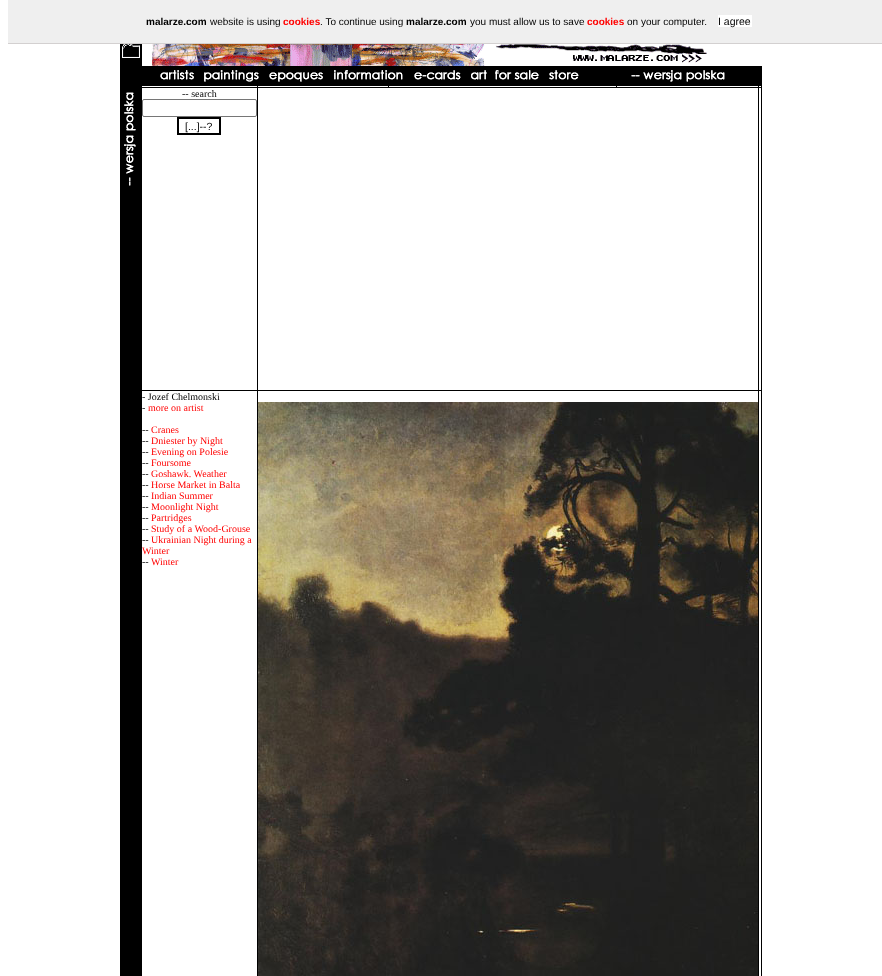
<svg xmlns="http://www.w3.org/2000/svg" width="882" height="976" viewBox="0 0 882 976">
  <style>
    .t1 { font: bold 10px Liberation Sans; fill: #000; }
    .t2 { font: 10px Liberation Sans; fill: #000; }
    .t3 { font: bold 10px Liberation Sans; fill: #f00; }
    .t4 { font: 10.5px Liberation Sans; fill: #000; }
    .t5 { font: 10px Liberation Serif; fill: #000; }
    .t6 { font: 10px Liberation Serif; fill: #f00; }
  </style>
  <rect width="100%" height="100%" fill="#fff"/>
  <rect x="8" y="0" width="874" height="43" fill="#efefef"/>
  <rect x="8" y="43" width="874" height="1" fill="#d3d0d0"/>
  <text x="146" y="25" class="t1">malarze.com</text>
  <text x="210" y="25" class="t2">website is using</text>
  <text x="283" y="25" class="t3">cookies</text>
  <text x="320" y="25" class="t2">. To continue using</text>
  <text x="406" y="25" class="t1">malarze.com</text>
  <text x="470" y="25" class="t2">you must allow us to save</text>
  <text x="587" y="25" class="t3">cookies</text>
  <text x="627" y="25" class="t2">on your computer.</text>
  <rect x="718" y="15" width="34" height="12" fill="#fff"/>
  <text x="718" y="25" class="t4">I agree</text>
  <rect x="120" y="44" width="22" height="932" fill="#000"/>
  <image x="122" y="44" width="18" height="14" href="images/1.png"/>
  <image x="151" y="44" width="556" height="22" href="images/2.png"/>
  <rect x="142" y="66" width="620" height="20" fill="#000"/>
  <image x="160" y="70" width="34" height="10" href="images/3.png"/>
  <image x="204" y="70" width="55" height="12" href="images/4.png"/>
  <image x="269" y="72" width="54" height="10" href="images/5.png"/>
  <image x="334" y="70" width="69" height="10" href="images/6.png"/>
  <image x="414" y="70" width="47" height="10" href="images/7.png"/>
  <image x="471" y="70" width="68" height="10" href="images/8.png"/>
  <image x="549" y="70" width="30" height="10" href="images/9.png"/>
  <image x="631" y="70" width="94" height="12" href="images/10.png"/>
  <rect x="257" y="86" width="1" height="1" fill="#000"/>
  <rect x="388" y="86" width="1" height="1" fill="#000"/>
  <rect x="616" y="86" width="1" height="1" fill="#000"/>
  <rect x="758" y="86" width="1" height="1" fill="#000"/>
  <rect x="761" y="86" width="1" height="1" fill="#000"/>
  <image x="124" y="92" width="12" height="94" href="images/11.png"/>
  <rect x="142" y="87" width="620" height="1" fill="#000"/>
  <text x="182" y="97" class="t5">-- search</text>
  <rect x="142.5" y="99.5" width="114" height="17" rx="1.5" fill="none" stroke="#767676"/>
  <rect x="178" y="118" width="42" height="16" fill="none" stroke="#000" stroke-width="2"/>
  <text x="185" y="130" class="t4">[...]--?</text>
  <rect x="257" y="88" width="1" height="302" fill="#000"/>
  <rect x="758" y="88" width="1" height="302" fill="#000"/>
  <rect x="761" y="88" width="1" height="302" fill="#000"/>
  <rect x="142" y="390" width="620" height="1" fill="#000"/>
  <text x="142" y="400" class="t5">- Jozef Chelmonski</text>
  <text x="142" y="411" class="t5">-</text>
  <text x="148" y="411" class="t6">more on artist</text>
  <text x="142" y="433" class="t5">--</text>
  <text x="151" y="433" class="t6">Cranes</text>
  <text x="142" y="444" class="t5">--</text>
  <text x="151" y="444" class="t6">Dniester by Night</text>
  <text x="142" y="455" class="t5">--</text>
  <text x="151" y="455" class="t6">Evening on Polesie</text>
  <text x="142" y="466" class="t5">--</text>
  <text x="151" y="466" class="t6">Foursome</text>
  <text x="142" y="477" class="t5">--</text>
  <text x="151" y="477" class="t6">Goshawk. Weather</text>
  <text x="142" y="488" class="t5">--</text>
  <text x="151" y="488" class="t6">Horse Market in Balta</text>
  <text x="142" y="499" class="t5">--</text>
  <text x="151" y="499" class="t6">Indian Summer</text>
  <text x="142" y="510" class="t5">--</text>
  <text x="151" y="510" class="t6">Moonlight Night</text>
  <text x="142" y="521" class="t5">--</text>
  <text x="151" y="521" class="t6">Partridges</text>
  <text x="142" y="532" class="t5">--</text>
  <text x="151" y="532" class="t6">Study of a Wood-Grouse</text>
  <text x="142" y="543" class="t5">--</text>
  <text x="151" y="543" class="t6">Ukrainian Night during a</text>
  <text x="142" y="554" class="t6">Winter</text>
  <text x="142" y="565" class="t5">--</text>
  <text x="151" y="565" class="t6">Winter</text>
  <rect x="257" y="391" width="1" height="585" fill="#000"/>
  <image x="258" y="402" width="500" height="574" href="images/12.png"/>
  <rect x="758" y="391" width="1" height="585" fill="#000"/>
  <rect x="761" y="391" width="1" height="585" fill="#000"/>
</svg>
